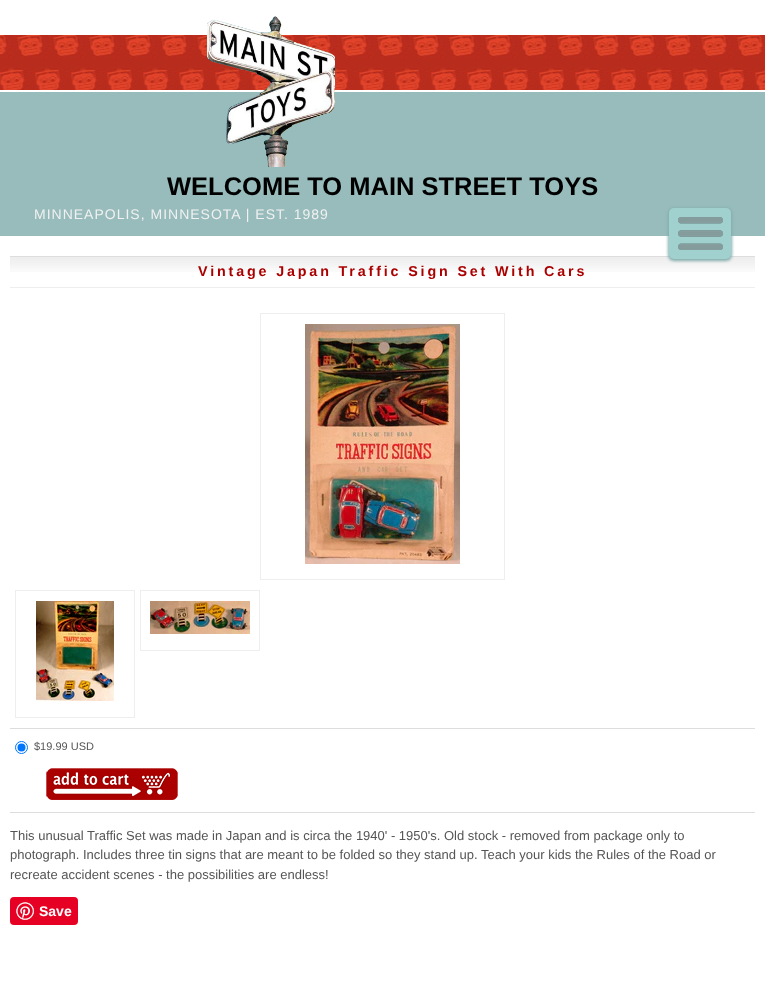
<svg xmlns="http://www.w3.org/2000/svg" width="765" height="1002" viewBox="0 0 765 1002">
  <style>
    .t1 { font: bold 25.5px Liberation Sans; fill: #000; }
    .t2 { font: 14px Liberation Sans; letter-spacing: 1px; fill: #f1f1f1; }
    .t3 { font: bold 14.3px Liberation Sans; letter-spacing: 2.85px; fill: #a00; }
    .t4 { font: 11px Liberation Sans; fill: #555; }
    .t5 { font: 13px Liberation Sans; fill: #555; }
    .t6 { font: bold 14px Liberation Sans; fill: #fff; }
  </style>
  <rect width="100%" height="100%" fill="#fff"/>
  <image x="0" y="35" width="765" height="55" href="images/2.png"/>
  <rect x="0" y="92" width="765" height="144" fill="#97bcbb"/>
  <image x="207" y="16" width="128" height="151" href="images/1.png"/>
  <text x="167" y="195" class="t1">WELCOME TO MAIN STREET TOYS</text>
  <text x="34" y="219" class="t2">MINNEAPOLIS, MINNESOTA | EST. 1989</text>
  <image x="10" y="257" width="745" height="15" href="images/4.png"/>
  <rect x="10" y="256" width="745" height="1" fill="#ddd"/>
  <rect x="668" y="208" width="64" height="53" rx="6" fill="#81abaa" filter="blur(1.5px)"/>
  <rect x="669" y="208" width="62" height="51" rx="5" fill="#a0d1cf"/>
  <image x="678" y="217" width="45" height="33" href="images/3.png"/>
  <rect x="10" y="287" width="745" height="1" fill="#eee"/>
  <text x="198" y="276" class="t3">Vintage Japan Traffic Sign Set With Cars</text>
  <rect x="260.5" y="313.5" width="244" height="266" fill="none" stroke="#eee"/>
  <image x="305" y="324" width="155" height="240" href="images/5.png"/>
  <rect x="15.5" y="590.5" width="119" height="127" fill="none" stroke="#eee"/>
  <image x="36" y="601" width="78" height="100" href="images/6.png"/>
  <rect x="140.5" y="590.5" width="119" height="60" fill="none" stroke="#eee"/>
  <image x="150" y="601" width="100" height="33" href="images/7.png"/>
  <rect x="10" y="728" width="745" height="1" fill="#ddd"/>
  <rect x="10" y="812" width="745" height="1" fill="#ddd"/>
  <circle cx="21.5" cy="747.5" r="6" fill="none" stroke="#0075ff"/>
  <circle cx="21.5" cy="747.5" r="4" fill="#0075ff"/>
  <text x="34" y="750" class="t4">$19.99 USD</text>
  <image x="46" y="768" width="132" height="32" href="images/8.png"/>
  <text x="10" y="840" class="t5">This unusual Traffic Set was made in Japan and is circa the 1940' - 1950's. Old stock - removed from package only to</text>
  <text x="10" y="859" class="t5">photograph. Includes three tin signs that are meant to be folded so they stand up. Teach your kids the Rules of the Road or</text>
  <text x="10" y="879" class="t5">recreate accident scenes - the possibilities are endless!</text>
  <rect x="10" y="897" width="68" height="28" rx="4" fill="#e60023"/>
  <image x="16" y="902" width="18" height="18" href="images/9.png"/>
  <text x="39" y="916" class="t6">Save</text>
</svg>
